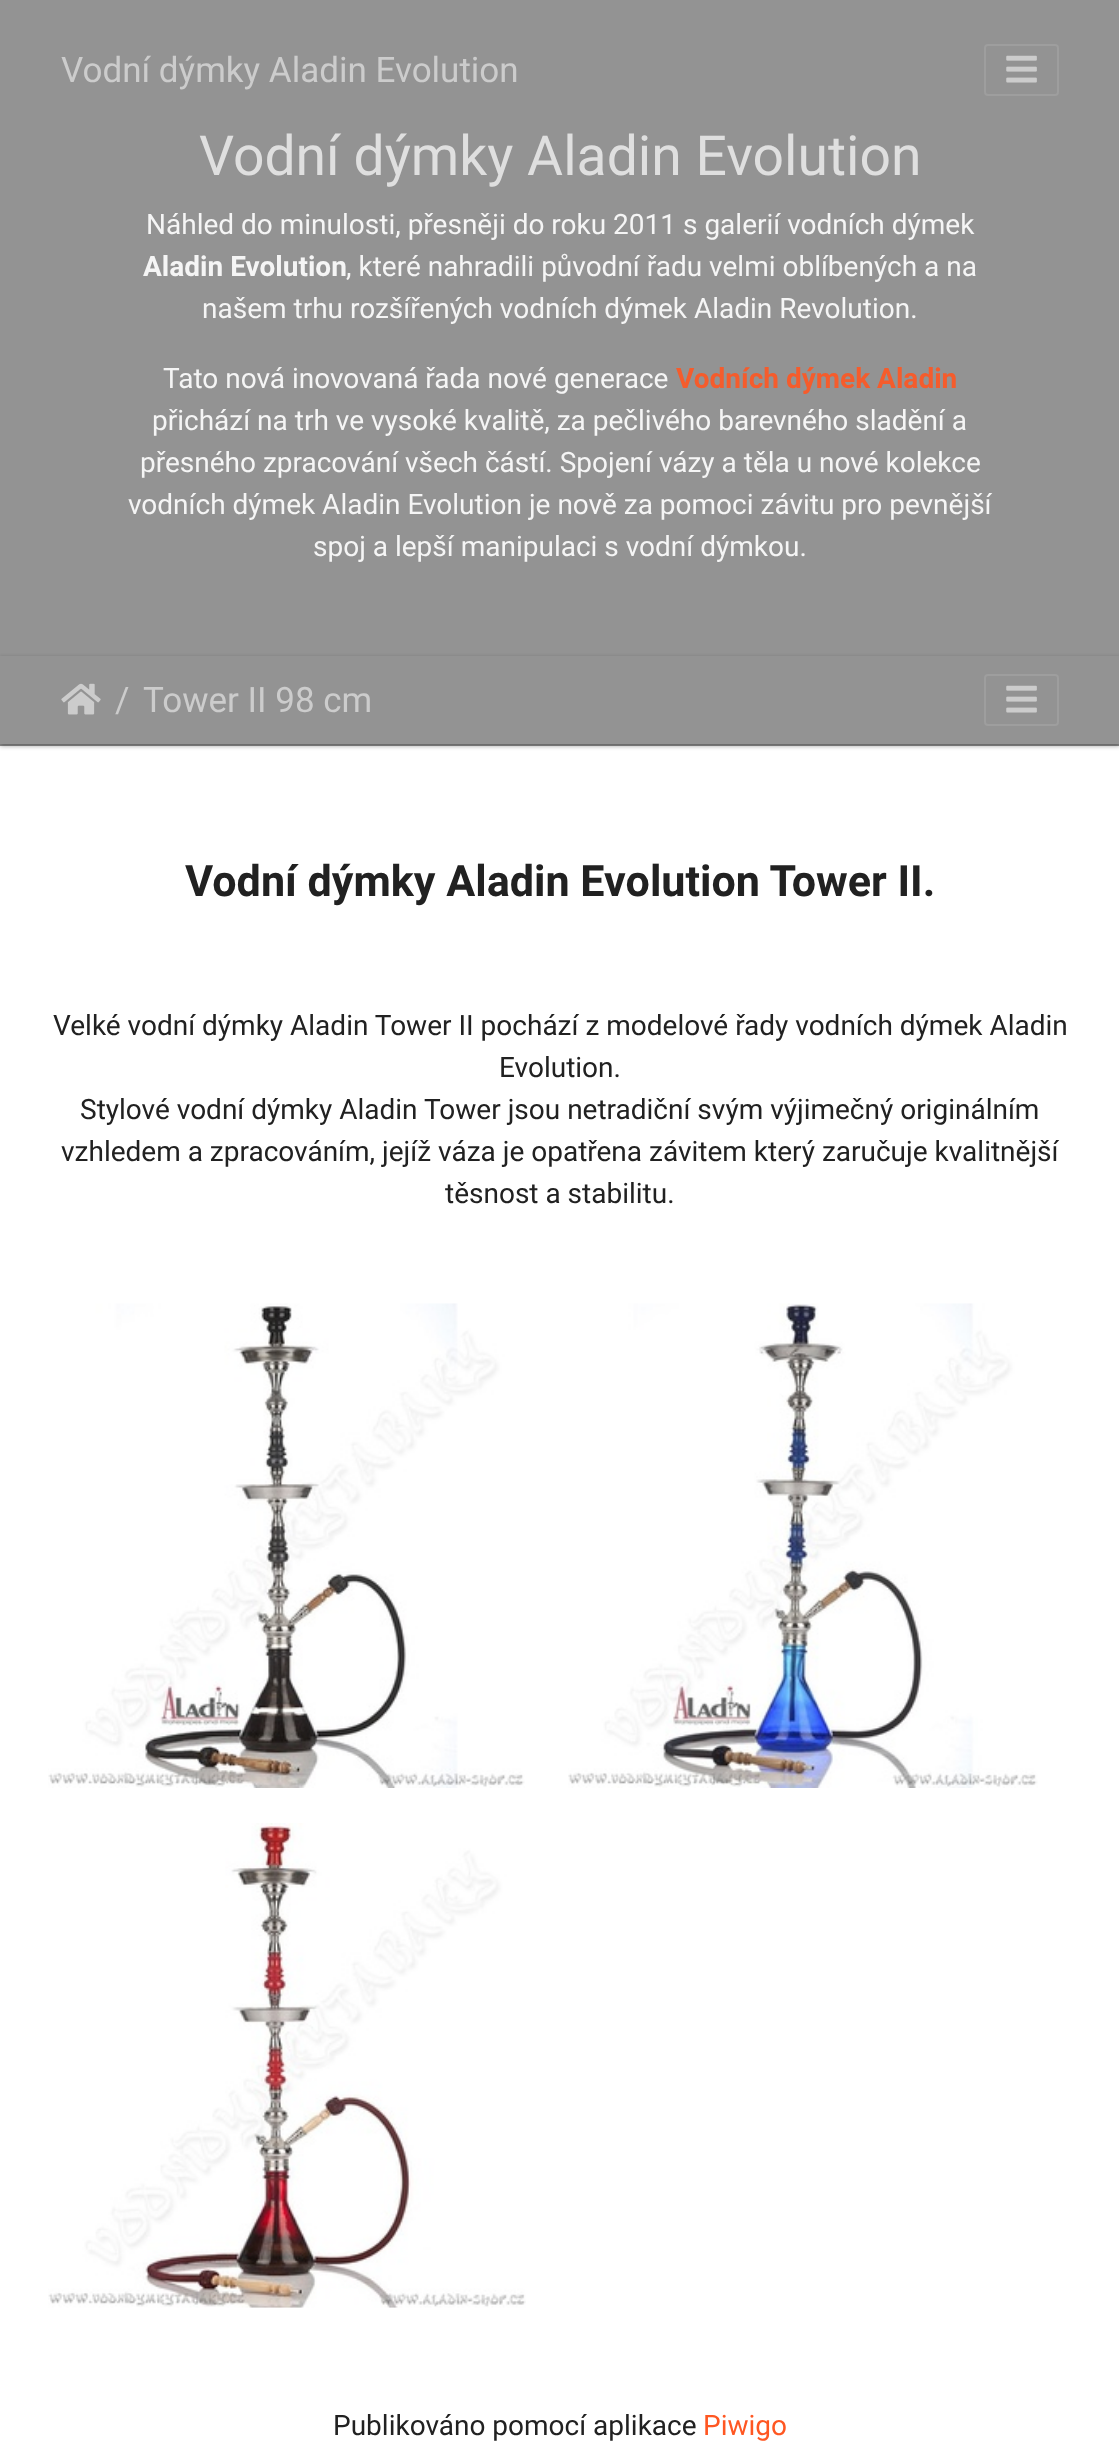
<svg xmlns="http://www.w3.org/2000/svg" width="1119" height="2461" viewBox="0 0 1119 2461">
  <style>
    .t1 { font: 35px Roboto; fill: #ccc; }
    .t2 { font: 55.25px Roboto; fill: #dfdfdf; }
    .t3 { font: 28px Roboto; fill: #f5f5f5; }
    .t4 { font: bold 28px Roboto; fill: #f5f5f5; }
    .t5 { font: bold 28px Roboto; fill: #f55c2c; }
    .t6 { font: bold 43.1px Roboto; fill: #212121; }
    .t7 { font: 28px Roboto; fill: #212121; }
    .t8 { font: 28px Roboto; fill: #ff5722; }
  </style>
  <defs>
    <clipPath id="clip1"><path d="M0 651H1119V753H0ZM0 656H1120V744H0Z" clip-rule="evenodd"/></clipPath>
    <clipPath id="clip2"><path d="M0 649H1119V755H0ZM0 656H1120V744H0Z" clip-rule="evenodd"/></clipPath>
  </defs>
  <rect width="100%" height="100%" fill="#fff"/>
  <rect x="0" y="0" width="1119" height="746" fill="#939393"/>
  <text x="61" y="82" class="t1">Vodní dýmky Aladin Evolution</text>
  <rect x="985" y="45" width="73" height="50" rx="3" fill="none" stroke="#9e9e9e" stroke-width="2"/>
  <image x="1006" y="55" width="31" height="28" href="images/1.png"/>
  <text x="199" y="175" class="t2">Vodní dýmky Aladin Evolution</text>
  <text x="146" y="234" class="t3">Náhled do minulosti, přesněji do roku 2011 s galerií vodních dýmek</text>
  <text x="143" y="276" class="t4">Aladin Evolution</text>
  <text x="346" y="276" class="t3">, které nahradili původní řadu velmi oblíbených a na</text>
  <text x="202" y="318" class="t3">našem trhu rozšířených vodních dýmek Aladin Revolution.</text>
  <text x="163" y="388" class="t3">Tato nová inovovaná řada nové generace</text>
  <text x="676" y="388" class="t5">Vodních dýmek Aladin</text>
  <text x="152" y="430" class="t3">přichází na trh ve vysoké kvalitě, za pečlivého barevného sladění a</text>
  <text x="140" y="472" class="t3">přesného zpracování všech částí. Spojení vázy a těla u nové kolekce</text>
  <text x="128" y="514" class="t3">vodních dýmek Aladin Evolution je nově za pomoci závitu pro pevnější</text>
  <text x="313" y="556" class="t3">spoj a lepší manipulaci s vodní dýmkou.</text>
  <g clip-path="url(#clip1)">
    <rect x="0" y="658" width="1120" height="88" fill="#0000003d" filter="blur(2px)"/>
  </g>
  <g clip-path="url(#clip2)">
    <rect x="0" y="658" width="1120" height="88" fill="#0000001f" filter="blur(2.5px)"/>
  </g>
  <image x="61" y="683" width="40" height="32" href="images/2.png"/>
  <text x="115" y="712" class="t1">/</text>
  <text x="143" y="712" class="t1">Tower II 98 cm</text>
  <rect x="985" y="675" width="73" height="50" rx="3" fill="none" stroke="#9e9e9e" stroke-width="2"/>
  <image x="1006" y="685" width="31" height="28" href="images/1.png"/>
  <text x="185" y="896" class="t6">Vodní dýmky Aladin Evolution Tower II.</text>
  <text x="53" y="1035" class="t7">Velké vodní dýmky Aladin Tower II pochází z modelové řady vodních dýmek Aladin</text>
  <text x="499" y="1077" class="t7">Evolution.</text>
  <text x="80" y="1119" class="t7">Stylové vodní dýmky Aladin Tower jsou netradiční svým výjimečný originálním</text>
  <text x="61" y="1161" class="t7">vzhledem a zpracováním, jejíž váza je opatřena závitem který zaručuje kvalitnější</text>
  <text x="445" y="1203" class="t7">těsnost a stabilitu.</text>
  <image x="48" y="1303" width="477" height="485" href="images/3.png"/>
  <image x="568" y="1303" width="470" height="485" href="images/4.png"/>
  <image x="48" y="1823" width="478" height="485" href="images/5.png"/>
  <text x="333" y="2435" class="t7">Publikováno pomocí aplikace</text>
  <text x="703" y="2435" class="t8">Piwigo</text>
</svg>
